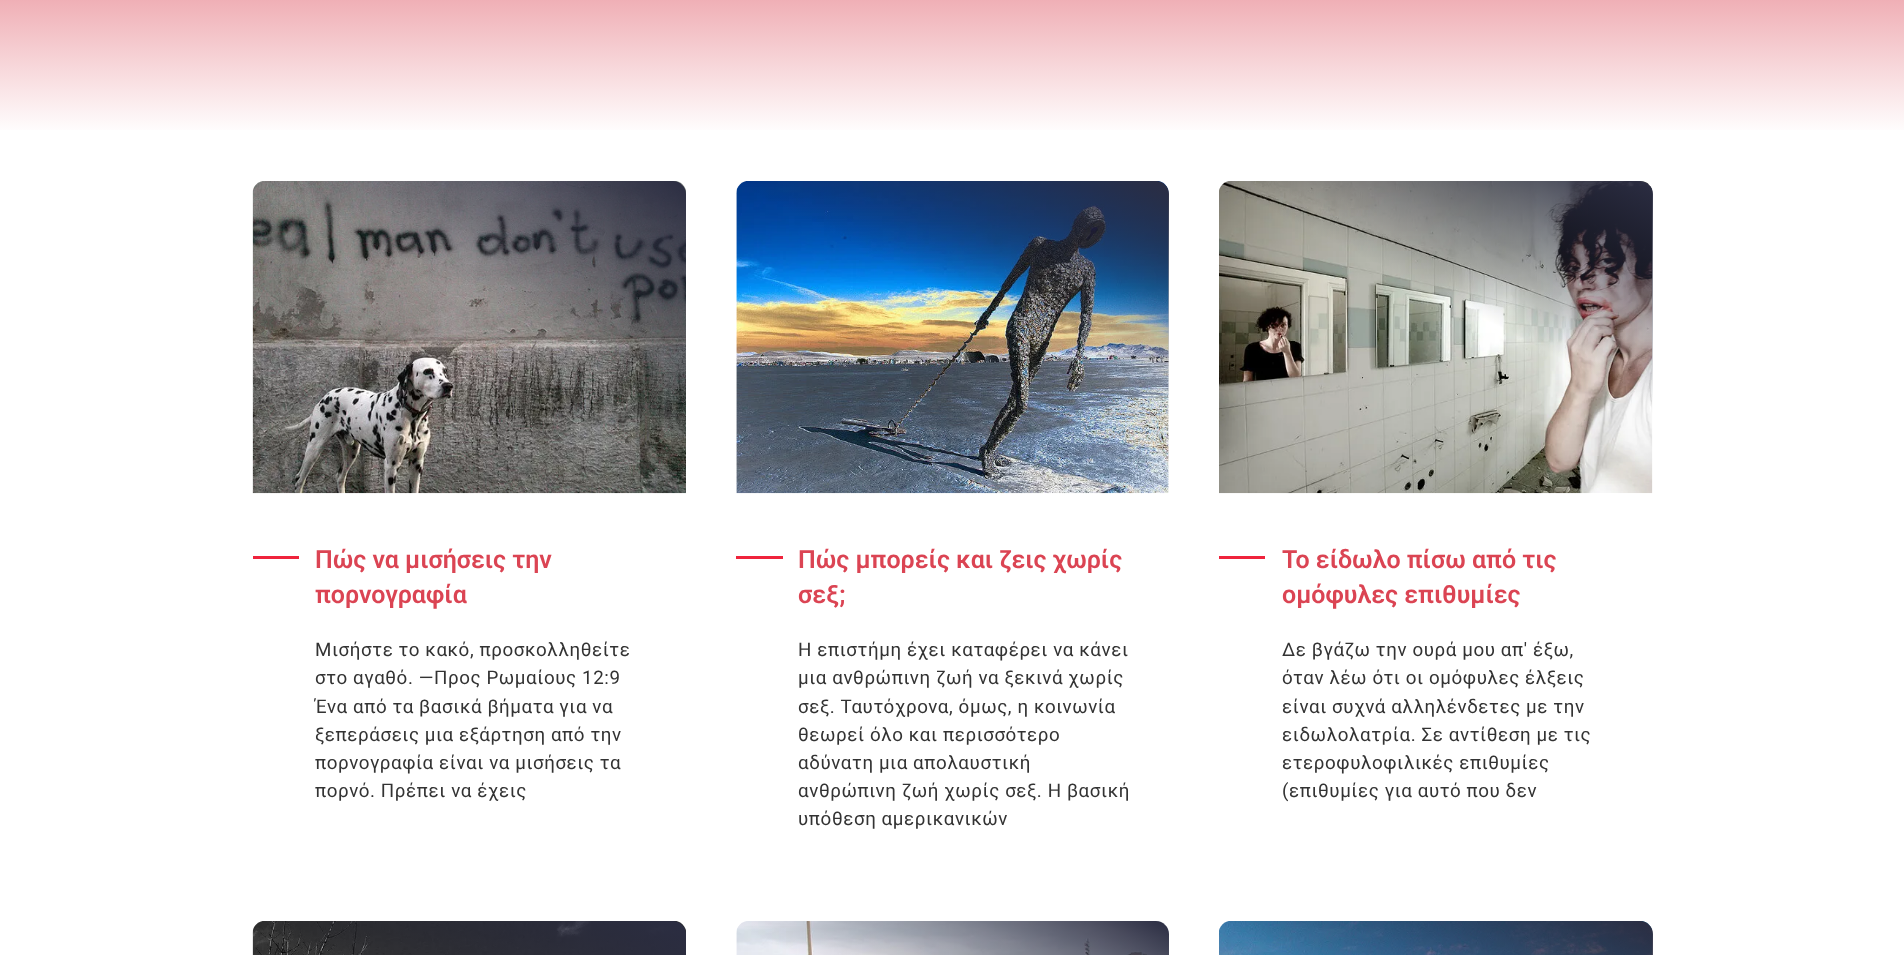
<svg xmlns="http://www.w3.org/2000/svg" width="1904" height="955" viewBox="0 0 1904 955">
  <style>
    .t1 { font: 600 25px Roboto; fill: #db4453; }
    .t2 { font: 18.75px Roboto; letter-spacing: 0.6px; fill: #333; }
  </style>
  <defs>
    <linearGradient id="g1" gradientUnits="userSpaceOnUse" x1="953" y1="-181" x2="953" y2="169"><stop offset="0" stop-color="#db4453"/><stop offset="0.9" stop-color="#fff"/></linearGradient>
    <linearGradient id="g2" gradientUnits="userSpaceOnUse" x1="577" y1="126" x2="361" y2="549"><stop offset="0" stop-color="#2b2d42"/><stop offset="0.42" stop-color="#2b2d42" stop-opacity="0"/></linearGradient>
    <linearGradient id="g3" gradientUnits="userSpaceOnUse" x1="1060" y1="126" x2="845" y2="549"><stop offset="0" stop-color="#2b2d42"/><stop offset="0.42" stop-color="#2b2d42" stop-opacity="0"/></linearGradient>
    <linearGradient id="g4" gradientUnits="userSpaceOnUse" x1="1544" y1="126" x2="1328" y2="549"><stop offset="0" stop-color="#2b2d42"/><stop offset="0.42" stop-color="#2b2d42" stop-opacity="0"/></linearGradient>
    <linearGradient id="g5" gradientUnits="userSpaceOnUse" x1="577" y1="866" x2="361" y2="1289"><stop offset="0" stop-color="#2b2d42"/><stop offset="0.42" stop-color="#2b2d42" stop-opacity="0"/></linearGradient>
    <linearGradient id="g6" gradientUnits="userSpaceOnUse" x1="1060" y1="866" x2="845" y2="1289"><stop offset="0" stop-color="#2b2d42"/><stop offset="0.42" stop-color="#2b2d42" stop-opacity="0"/></linearGradient>
    <linearGradient id="g7" gradientUnits="userSpaceOnUse" x1="1544" y1="866" x2="1328" y2="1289"><stop offset="0" stop-color="#2b2d42"/><stop offset="0.42" stop-color="#2b2d42" stop-opacity="0"/></linearGradient>
  </defs>
  <rect width="100%" height="100%" fill="#fff"/>
  <rect x="0" y="0" width="1904" height="130" fill="url(#g1)"/>
  <image x="252" y="181" width="434" height="313" href="images/1.png"/>
  <path d="M266 181H673C680 181 686 187 686 194V494H253V194C253 187 259 181 266 181Z" fill="url(#g2)"/>
  <rect x="253" y="556" width="46" height="3" fill="#ef233c"/>
  <text x="315" y="568" class="t1">Πώς να μισήσεις την</text>
  <text x="315" y="603" class="t1">πορνογραφία</text>
  <text x="315" y="656" class="t2">Μισήστε το κακό, προσκολληθείτε</text>
  <text x="315" y="684" class="t2">στο αγαθό. —Προς Ρωμαίους 12:9</text>
  <text x="315" y="713" class="t2">Ένα από τα βασικά βήματα για να</text>
  <text x="315" y="741" class="t2">ξεπεράσεις μια εξάρτηση από την</text>
  <text x="315" y="769" class="t2">πορνογραφία είναι να μισήσεις τα</text>
  <text x="315" y="797" class="t2">πορνό. Πρέπει να έχεις</text>
  <image x="736" y="181" width="433" height="313" href="images/2.png"/>
  <path d="M749 181H1156C1163 181 1169 187 1169 194V494H736V194C736 187 742 181 749 181Z" fill="url(#g3)"/>
  <rect x="736" y="556" width="47" height="3" fill="#ef233c"/>
  <text x="798" y="568" class="t1">Πώς μπορείς και ζεις χωρίς</text>
  <text x="798" y="603" class="t1">σεξ;</text>
  <text x="798" y="656" class="t2">Η επιστήμη έχει καταφέρει να κάνει</text>
  <text x="798" y="684" class="t2">μια ανθρώπινη ζωή να ξεκινά χωρίς</text>
  <text x="798" y="713" class="t2">σεξ. Ταυτόχρονα, όμως, η κοινωνία</text>
  <text x="798" y="741" class="t2">θεωρεί όλο και περισσότερο</text>
  <text x="798" y="769" class="t2">αδύνατη μια απολαυστική</text>
  <text x="798" y="797" class="t2">ανθρώπινη ζωή χωρίς σεξ. Η βασική</text>
  <text x="798" y="825" class="t2">υπόθεση αμερικανικών</text>
  <image x="1219" y="181" width="434" height="313" href="images/3.png"/>
  <path d="M1232 181H1640C1647 181 1653 187 1653 194V494H1219V194C1219 187 1225 181 1232 181Z" fill="url(#g4)"/>
  <rect x="1219" y="556" width="46" height="3" fill="#ef233c"/>
  <text x="1282" y="568" class="t1">Το είδωλο πίσω από τις</text>
  <text x="1282" y="603" class="t1">ομόφυλες επιθυμίες</text>
  <text x="1282" y="656" class="t2">Δε βγάζω την ουρά μου απ' έξω,</text>
  <text x="1282" y="684" class="t2">όταν λέω ότι οι ομόφυλες έλξεις</text>
  <text x="1282" y="713" class="t2">είναι συχνά αλληλένδετες με την</text>
  <text x="1282" y="741" class="t2">ειδωλολατρία. Σε αντίθεση με τις</text>
  <text x="1282" y="769" class="t2">ετεροφυλοφιλικές επιθυμίες</text>
  <text x="1282" y="797" class="t2">(επιθυμίες για αυτό που δεν</text>
  <image x="252" y="921" width="434" height="34" href="images/4.png"/>
  <path d="M266 921H673C680 921 686 927 686 934V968H253V934C253 927 259 921 266 921Z" fill="url(#g5)"/>
  <image x="736" y="921" width="433" height="34" href="images/5.png"/>
  <path d="M749 921H1156C1163 921 1169 927 1169 934V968H736V934C736 927 742 921 749 921Z" fill="url(#g6)"/>
  <image x="1219" y="921" width="434" height="34" href="images/6.png"/>
  <path d="M1232 921H1640C1647 921 1653 927 1653 934V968H1219V934C1219 927 1225 921 1232 921Z" fill="url(#g7)"/>
</svg>
